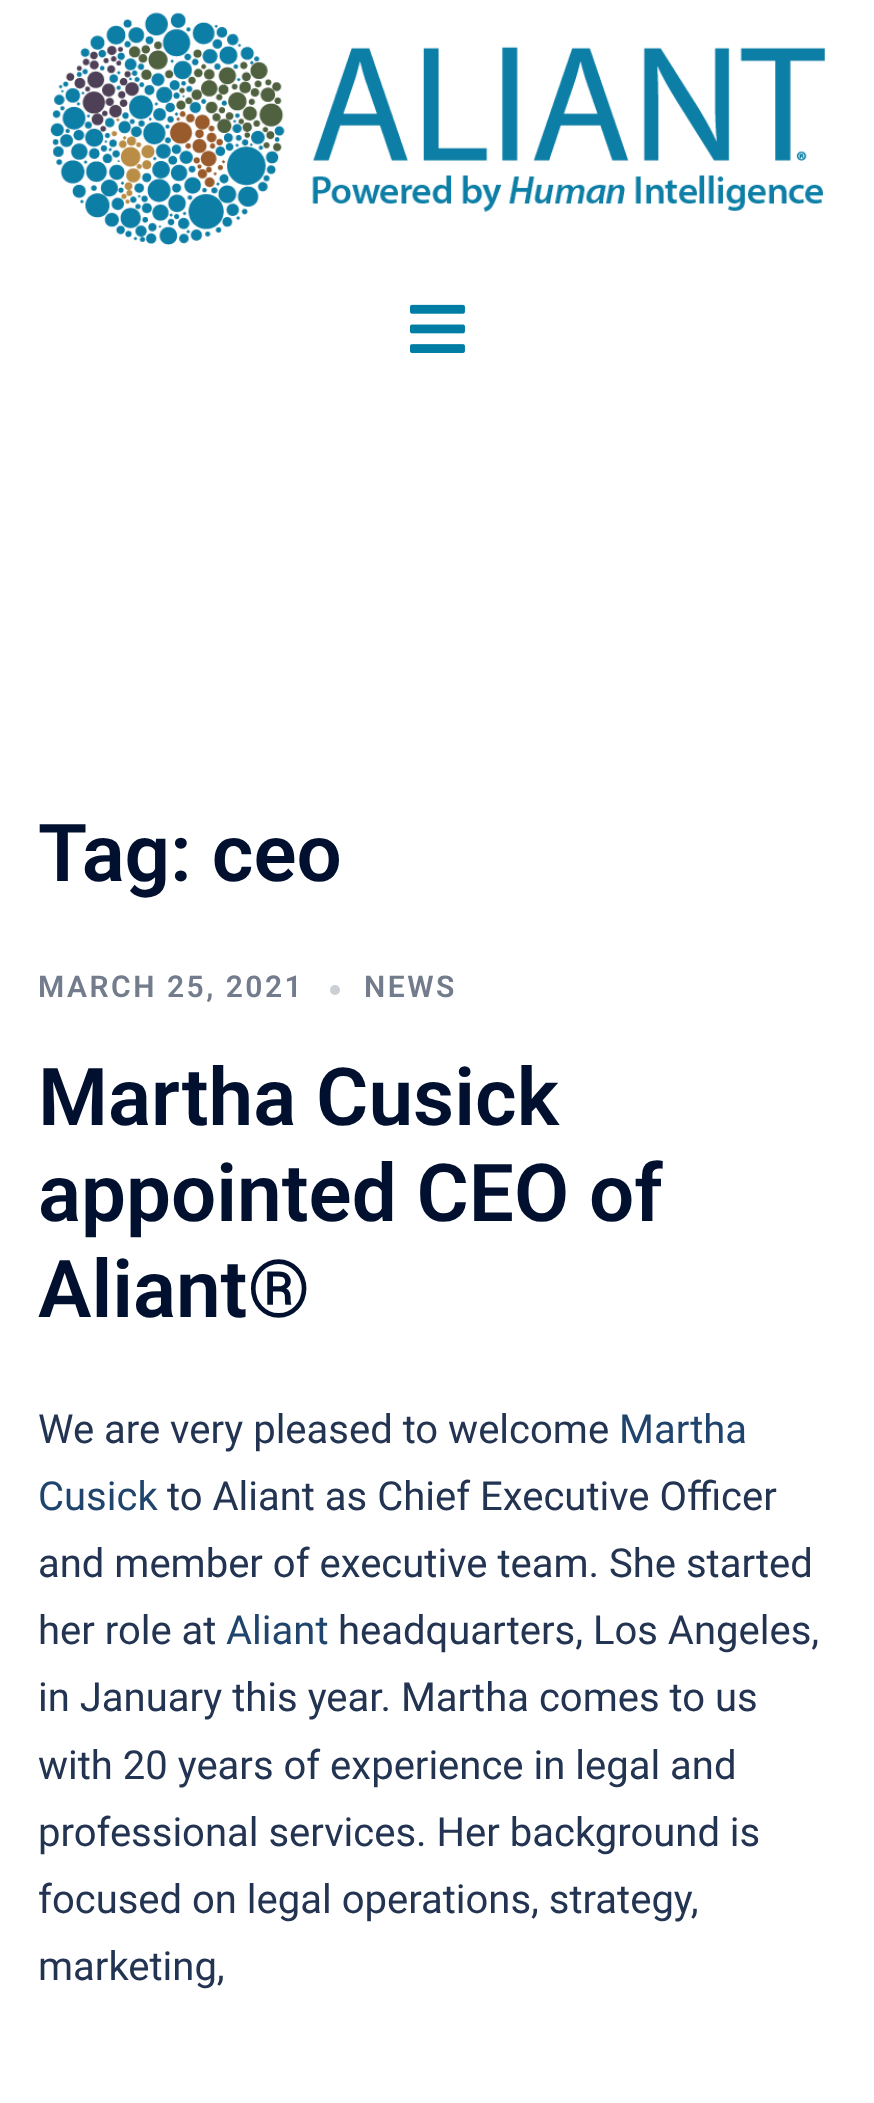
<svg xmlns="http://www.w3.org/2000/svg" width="874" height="2103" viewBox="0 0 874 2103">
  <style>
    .t1 { font: 600 80px Roboto; fill: #00102e; }
    .t2 { font: 600 30px Roboto; letter-spacing: 2.5px; fill: #737c8c; }
    .t3 { font: 40px Roboto; fill: #233452; }
    .t4 { font: 40px Roboto; fill: #1f456e; }
  </style>
  <rect width="100%" height="100%" fill="#fff"/>
  <image x="50" y="12" width="775" height="233" href="images/1.png"/>
  <image x="410" y="304" width="55" height="49" href="images/2.png"/>
  <text x="38" y="881" class="t1">Tag: ceo</text>
  <text x="38" y="997" class="t2">MARCH 25, 2021</text>
  <circle cx="335" cy="990" r="5" fill="#cccfd5"/>
  <text x="364" y="997" class="t2">NEWS</text>
  <text x="38" y="1125" class="t1">Martha Cusick</text>
  <text x="38" y="1221" class="t1">appointed CEO of</text>
  <text x="38" y="1317" class="t1">Aliant®</text>
  <text x="38" y="1443" class="t3">We are very pleased to welcome</text>
  <text x="619" y="1443" class="t4">Martha</text>
  <text x="38" y="1510" class="t4">Cusick</text>
  <text x="167" y="1510" class="t3">to Aliant as Chief Executive Officer</text>
  <text x="38" y="1577" class="t3">and member of executive team. She started</text>
  <text x="38" y="1644" class="t3">her role at</text>
  <text x="226" y="1644" class="t4">Aliant</text>
  <text x="338" y="1644" class="t3">headquarters, Los Angeles,</text>
  <text x="38" y="1711" class="t3">in January this year. Martha comes to us</text>
  <text x="38" y="1779" class="t3">with 20 years of experience in legal and</text>
  <text x="38" y="1846" class="t3">professional services. Her background is</text>
  <text x="38" y="1913" class="t3">focused on legal operations, strategy,</text>
  <text x="38" y="1980" class="t3">marketing,</text>
</svg>
